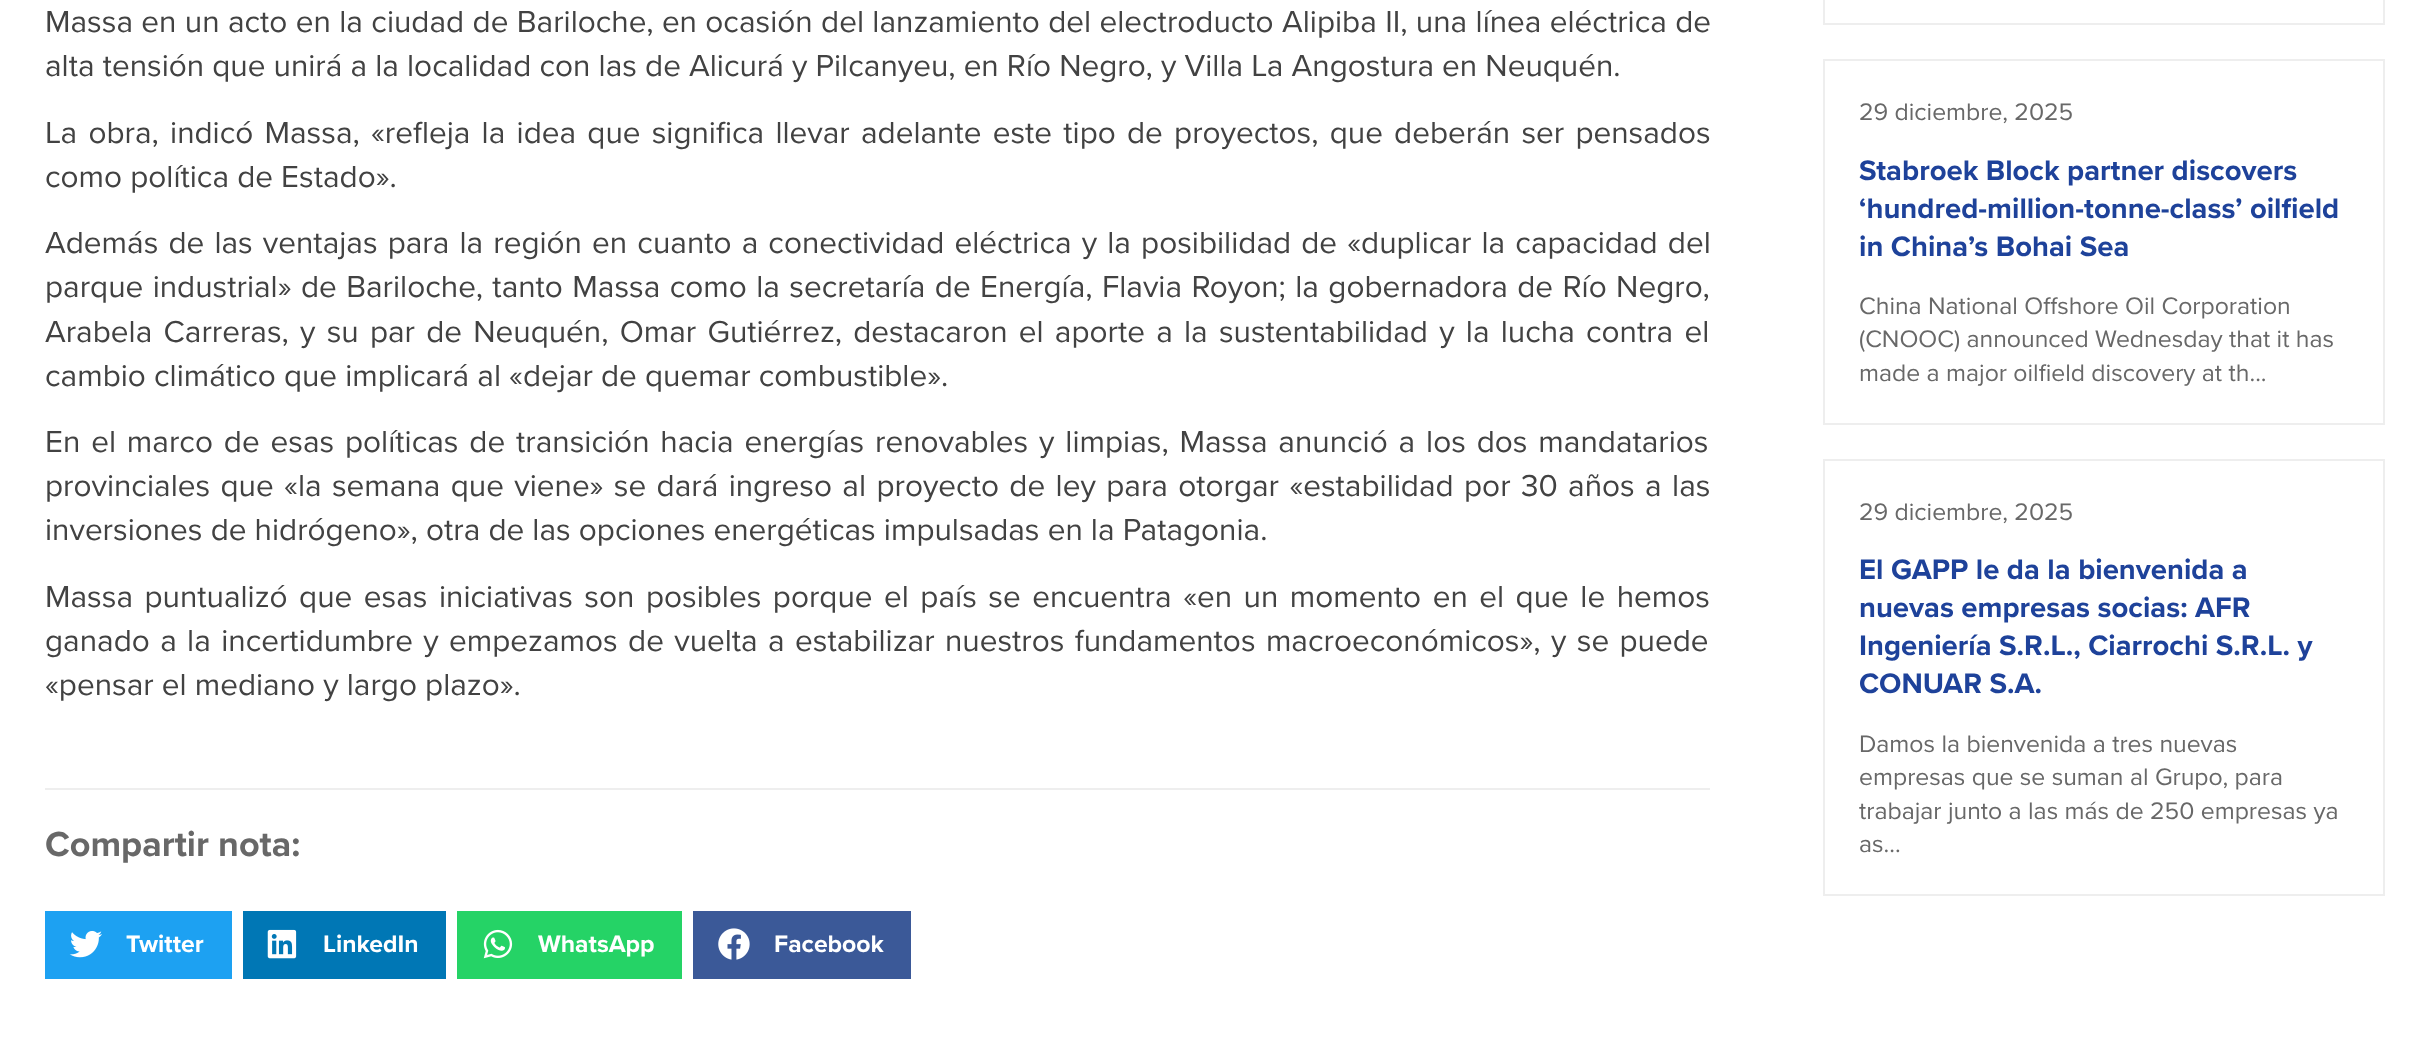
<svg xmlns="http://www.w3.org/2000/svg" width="2428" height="1063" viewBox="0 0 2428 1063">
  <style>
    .t1 { font: 31.5px Proxima Nova; fill: #424242; }
    .t2 { font: bold 36px Proxima Nova; fill: #686868; }
    .t3 { font: bold 24.75px Proxima Nova; fill: #fff; }
    .t4 { font: 24.75px Proxima Nova; fill: #686868; }
    .t5 { font: bold 29.25px Proxima Nova; fill: #1e429a; }
  </style>
  <rect width="100%" height="100%" fill="#fff"/>
  <text x="45" y="32" word-spacing="0.25" class="t1">Massa en un acto en la ciudad de Bariloche, en ocasión del lanzamiento del electroducto Alipiba II, una línea eléctrica de</text>
  <text x="45" y="76" class="t1">alta tensión que unirá a la localidad con las de Alicurá y Pilcanyeu, en Río Negro, y Villa La Angostura en Neuquén.</text>
  <text x="45" y="143" word-spacing="3.1" class="t1">La obra, indicó Massa, «refleja la idea que significa llevar adelante este tipo de proyectos, que deberán ser pensados</text>
  <text x="45" y="187" class="t1">como política de Estado».</text>
  <text x="45" y="253" word-spacing="2" class="t1">Además de las ventajas para la región en cuanto a conectividad eléctrica y la posibilidad de «duplicar la capacidad del</text>
  <text x="45" y="297" word-spacing="1.3" class="t1">parque industrial» de Bariloche, tanto Massa como la secretaría de Energía, Flavia Royon; la gobernadora de Río Negro,</text>
  <text x="45" y="342" word-spacing="3.1" class="t1">Arabela Carreras, y su par de Neuquén, Omar Gutiérrez, destacaron el aporte a la sustentabilidad y la lucha contra el</text>
  <text x="45" y="386" class="t1">cambio climático que implicará al «dejar de quemar combustible».</text>
  <text x="45" y="452" word-spacing="2.75" class="t1">En el marco de esas políticas de transición hacia energías renovables y limpias, Massa anunció a los dos mandatarios</text>
  <text x="45" y="496" word-spacing="2.25" class="t1">provinciales que «la semana que viene» se dará ingreso al proyecto de ley para otorgar «estabilidad por 30 años a las</text>
  <text x="45" y="540" class="t1">inversiones de hidrógeno», otra de las opciones energéticas impulsadas en la Patagonia.</text>
  <text x="45" y="607" word-spacing="3.4" class="t1">Massa puntualizó que esas iniciativas son posibles porque el país se encuentra «en un momento en el que le hemos</text>
  <text x="45" y="651" word-spacing="2.25" class="t1">ganado a la incertidumbre y empezamos de vuelta a estabilizar nuestros fundamentos macroeconómicos», y se puede</text>
  <text x="45" y="695" class="t1">«pensar el mediano y largo plazo».</text>
  <rect x="45" y="788" width="1665" height="2" fill="#eee"/>
  <text x="45" y="856" class="t2">Compartir nota:</text>
  <rect x="45" y="911" width="187" height="68" fill="#1da1f2"/>
  <image x="69" y="930" width="33" height="28" href="images/1.png"/>
  <text x="126" y="952" class="t3">Twitter</text>
  <rect x="243" y="911" width="203" height="68" fill="#0077b5"/>
  <image x="267" y="929" width="30" height="30" href="images/2.png"/>
  <text x="323" y="952" class="t3">LinkedIn</text>
  <rect x="457" y="911" width="225" height="68" fill="#25d366"/>
  <image x="483" y="929" width="30" height="30" href="images/3.png"/>
  <text x="538" y="952" class="t3">WhatsApp</text>
  <rect x="693" y="911" width="218" height="68" fill="#3b5998"/>
  <image x="718" y="928" width="32" height="32" href="images/4.png"/>
  <text x="774" y="952" class="t3">Facebook</text>
  <rect x="1824" y="-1" width="560" height="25" fill="none" stroke="#eee" stroke-width="2"/>
  <rect x="1824" y="60" width="560" height="364" fill="none" stroke="#eee" stroke-width="2"/>
  <text x="1859" y="120" class="t4">29 diciembre, 2025</text>
  <text x="1859" y="180" class="t5">Stabroek Block partner discovers</text>
  <text x="1859" y="218" class="t5">‘hundred-million-tonne-class’ oilfield</text>
  <text x="1859" y="256" class="t5">in China’s Bohai Sea</text>
  <text x="1859" y="314" class="t4">China National Offshore Oil Corporation</text>
  <text x="1859" y="347" class="t4">(CNOOC) announced Wednesday that it has</text>
  <text x="1859" y="381" class="t4">made a major oilfield discovery at th...</text>
  <rect x="1824" y="460" width="560" height="435" fill="none" stroke="#eee" stroke-width="2"/>
  <text x="1859" y="520" class="t4">29 diciembre, 2025</text>
  <text x="1859" y="579" class="t5">El GAPP le da la bienvenida a</text>
  <text x="1859" y="617" class="t5">nuevas empresas socias: AFR</text>
  <text x="1859" y="655" class="t5">Ingeniería S.R.L., Ciarrochi S.R.L. y</text>
  <text x="1859" y="693" class="t5">CONUAR S.A.</text>
  <text x="1859" y="752" class="t4">Damos la bienvenida a tres nuevas</text>
  <text x="1859" y="785" class="t4">empresas que se suman al Grupo, para</text>
  <text x="1859" y="819" class="t4">trabajar junto a las más de 250 empresas ya</text>
  <text x="1859" y="852" class="t4">as...</text>
</svg>
